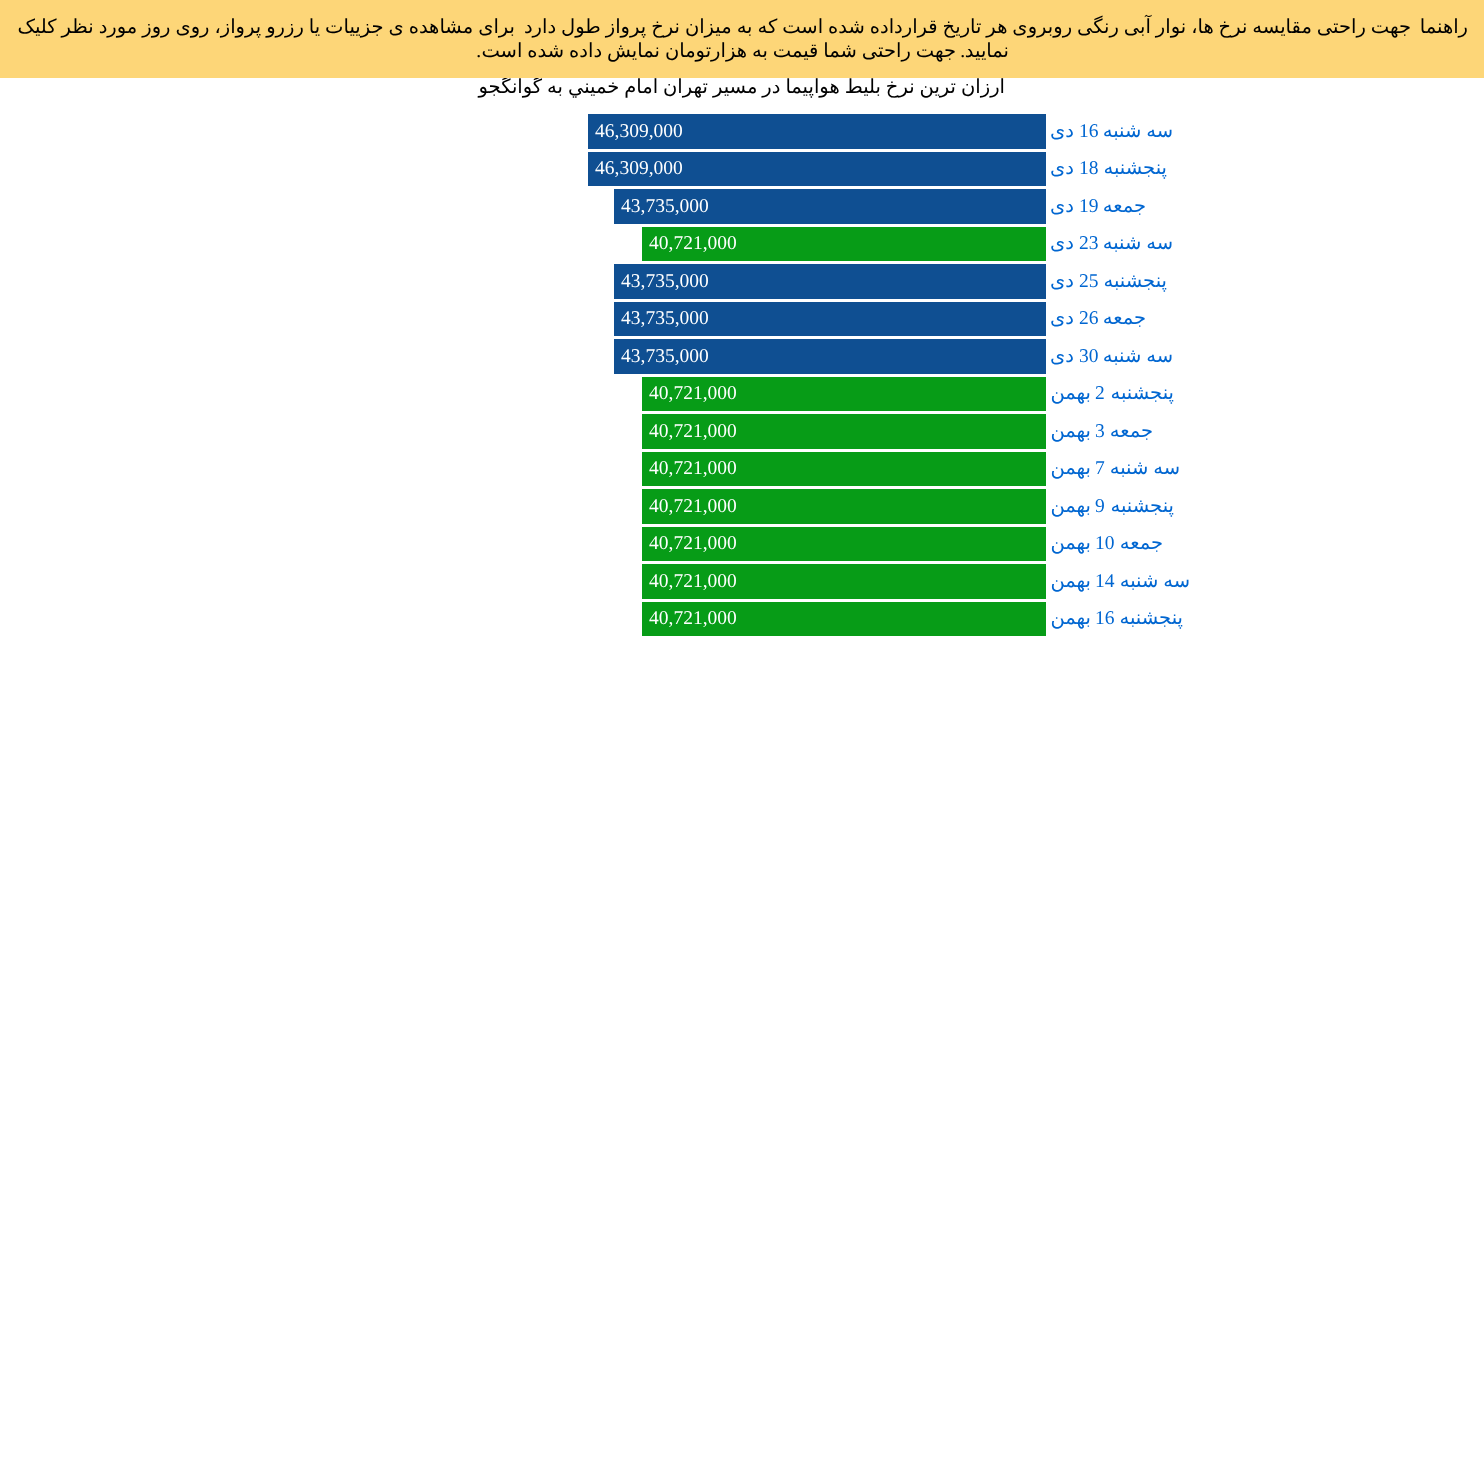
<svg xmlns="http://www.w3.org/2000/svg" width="1484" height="1469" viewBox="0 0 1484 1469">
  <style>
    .t1 { font: 19.5px DejaVu Sans; direction: rtl; fill: #000; }
    .t2 { font: 19.5px Liberation Serif; direction: rtl; fill: #000; }
    .t3 { font: 19.5px DejaVu Sans; direction: rtl; fill: #0066d1; }
    .t4 { font: 19.5px Liberation Serif; fill: #0066d1; }
    .t5 { font: 19.5px Liberation Serif; fill: #fff; }
  </style>
  <rect width="100%" height="100%" fill="#fff"/>
  <text x="1005" y="93" word-spacing="-1.25" class="t1">ارزان ترین نرخ بلیط هواپیما در مسیر تهران امام خميني به گوانگجو</text>
  <rect x="0" y="0" width="1484" height="78" fill="#fdd678"/>
  <text x="1468" y="33" class="t1">راهنما</text>
  <text x="1411" y="33" word-spacing="-1.25" class="t1">جهت راحتی مقایسه نرخ ها، نوار آبی رنگی روبروی هر تاریخ قرارداده شده است که به میزان نرخ پرواز طول دارد</text>
  <text x="515" y="33" word-spacing="-1.25" class="t1">برای مشاهده ی جزییات یا رزرو پرواز، روی روز مورد نظر کلیک</text>
  <text x="1009" y="57" class="t1">نمایید</text>
  <text x="956" y="57" word-spacing="-1.25" class="t1">جهت راحتی شما قیمت به هزارتومان نمایش داده شده است</text>
  <text x="481" y="57" class="t2">.</text>
  <text x="965" y="57" class="t2">.</text>
  <text x="1173" y="137" word-spacing="-1.25" class="t3">سه شنبه</text>
  <text x="1079" y="137" class="t4">16</text>
  <text x="1074" y="137" class="t3">دی</text>
  <rect x="588" y="114" width="458" height="35" fill="#0f4f92"/>
  <text x="595" y="137" class="t5">46,309,000</text>
  <text x="1167" y="174" class="t3">پنجشنبه</text>
  <text x="1079" y="174" class="t4">18</text>
  <text x="1074" y="174" class="t3">دی</text>
  <rect x="588" y="152" width="458" height="34" fill="#0f4f92"/>
  <text x="595" y="174" class="t5">46,309,000</text>
  <text x="1146" y="212" class="t3">جمعه</text>
  <text x="1079" y="212" class="t4">19</text>
  <text x="1074" y="212" class="t3">دی</text>
  <rect x="614" y="189" width="432" height="35" fill="#0f4f92"/>
  <text x="621" y="212" class="t5">43,735,000</text>
  <text x="1173" y="249" word-spacing="-1.25" class="t3">سه شنبه</text>
  <text x="1079" y="249" class="t4">23</text>
  <text x="1074" y="249" class="t3">دی</text>
  <rect x="642" y="227" width="404" height="34" fill="#079c17"/>
  <text x="649" y="249" class="t5">40,721,000</text>
  <text x="1167" y="287" class="t3">پنجشنبه</text>
  <text x="1079" y="287" class="t4">25</text>
  <text x="1074" y="287" class="t3">دی</text>
  <rect x="614" y="264" width="432" height="35" fill="#0f4f92"/>
  <text x="621" y="287" class="t5">43,735,000</text>
  <text x="1146" y="324" class="t3">جمعه</text>
  <text x="1079" y="324" class="t4">26</text>
  <text x="1074" y="324" class="t3">دی</text>
  <rect x="614" y="302" width="432" height="34" fill="#0f4f92"/>
  <text x="621" y="324" class="t5">43,735,000</text>
  <text x="1173" y="362" word-spacing="-1.25" class="t3">سه شنبه</text>
  <text x="1079" y="362" class="t4">30</text>
  <text x="1074" y="362" class="t3">دی</text>
  <rect x="614" y="339" width="432" height="35" fill="#0f4f92"/>
  <text x="621" y="362" class="t5">43,735,000</text>
  <text x="1174" y="399" class="t3">پنجشنبه</text>
  <text x="1095" y="399" class="t4">2</text>
  <text x="1091" y="399" class="t3">بهمن</text>
  <rect x="642" y="377" width="404" height="34" fill="#079c17"/>
  <text x="649" y="399" class="t5">40,721,000</text>
  <text x="1153" y="437" class="t3">جمعه</text>
  <text x="1095" y="437" class="t4">3</text>
  <text x="1091" y="437" class="t3">بهمن</text>
  <rect x="642" y="414" width="404" height="35" fill="#079c17"/>
  <text x="649" y="437" class="t5">40,721,000</text>
  <text x="1180" y="474" word-spacing="-1.25" class="t3">سه شنبه</text>
  <text x="1095" y="474" class="t4">7</text>
  <text x="1091" y="474" class="t3">بهمن</text>
  <rect x="642" y="452" width="404" height="34" fill="#079c17"/>
  <text x="649" y="474" class="t5">40,721,000</text>
  <text x="1174" y="512" class="t3">پنجشنبه</text>
  <text x="1095" y="512" class="t4">9</text>
  <text x="1091" y="512" class="t3">بهمن</text>
  <rect x="642" y="489" width="404" height="35" fill="#079c17"/>
  <text x="649" y="512" class="t5">40,721,000</text>
  <text x="1163" y="549" class="t3">جمعه</text>
  <text x="1095" y="549" class="t4">10</text>
  <text x="1091" y="549" class="t3">بهمن</text>
  <rect x="642" y="527" width="404" height="34" fill="#079c17"/>
  <text x="649" y="549" class="t5">40,721,000</text>
  <text x="1190" y="587" word-spacing="-1.25" class="t3">سه شنبه</text>
  <text x="1095" y="587" class="t4">14</text>
  <text x="1091" y="587" class="t3">بهمن</text>
  <rect x="642" y="564" width="404" height="35" fill="#079c17"/>
  <text x="649" y="587" class="t5">40,721,000</text>
  <text x="1183" y="624" class="t3">پنجشنبه</text>
  <text x="1095" y="624" class="t4">16</text>
  <text x="1091" y="624" class="t3">بهمن</text>
  <rect x="642" y="602" width="404" height="34" fill="#079c17"/>
  <text x="649" y="624" class="t5">40,721,000</text>
</svg>
